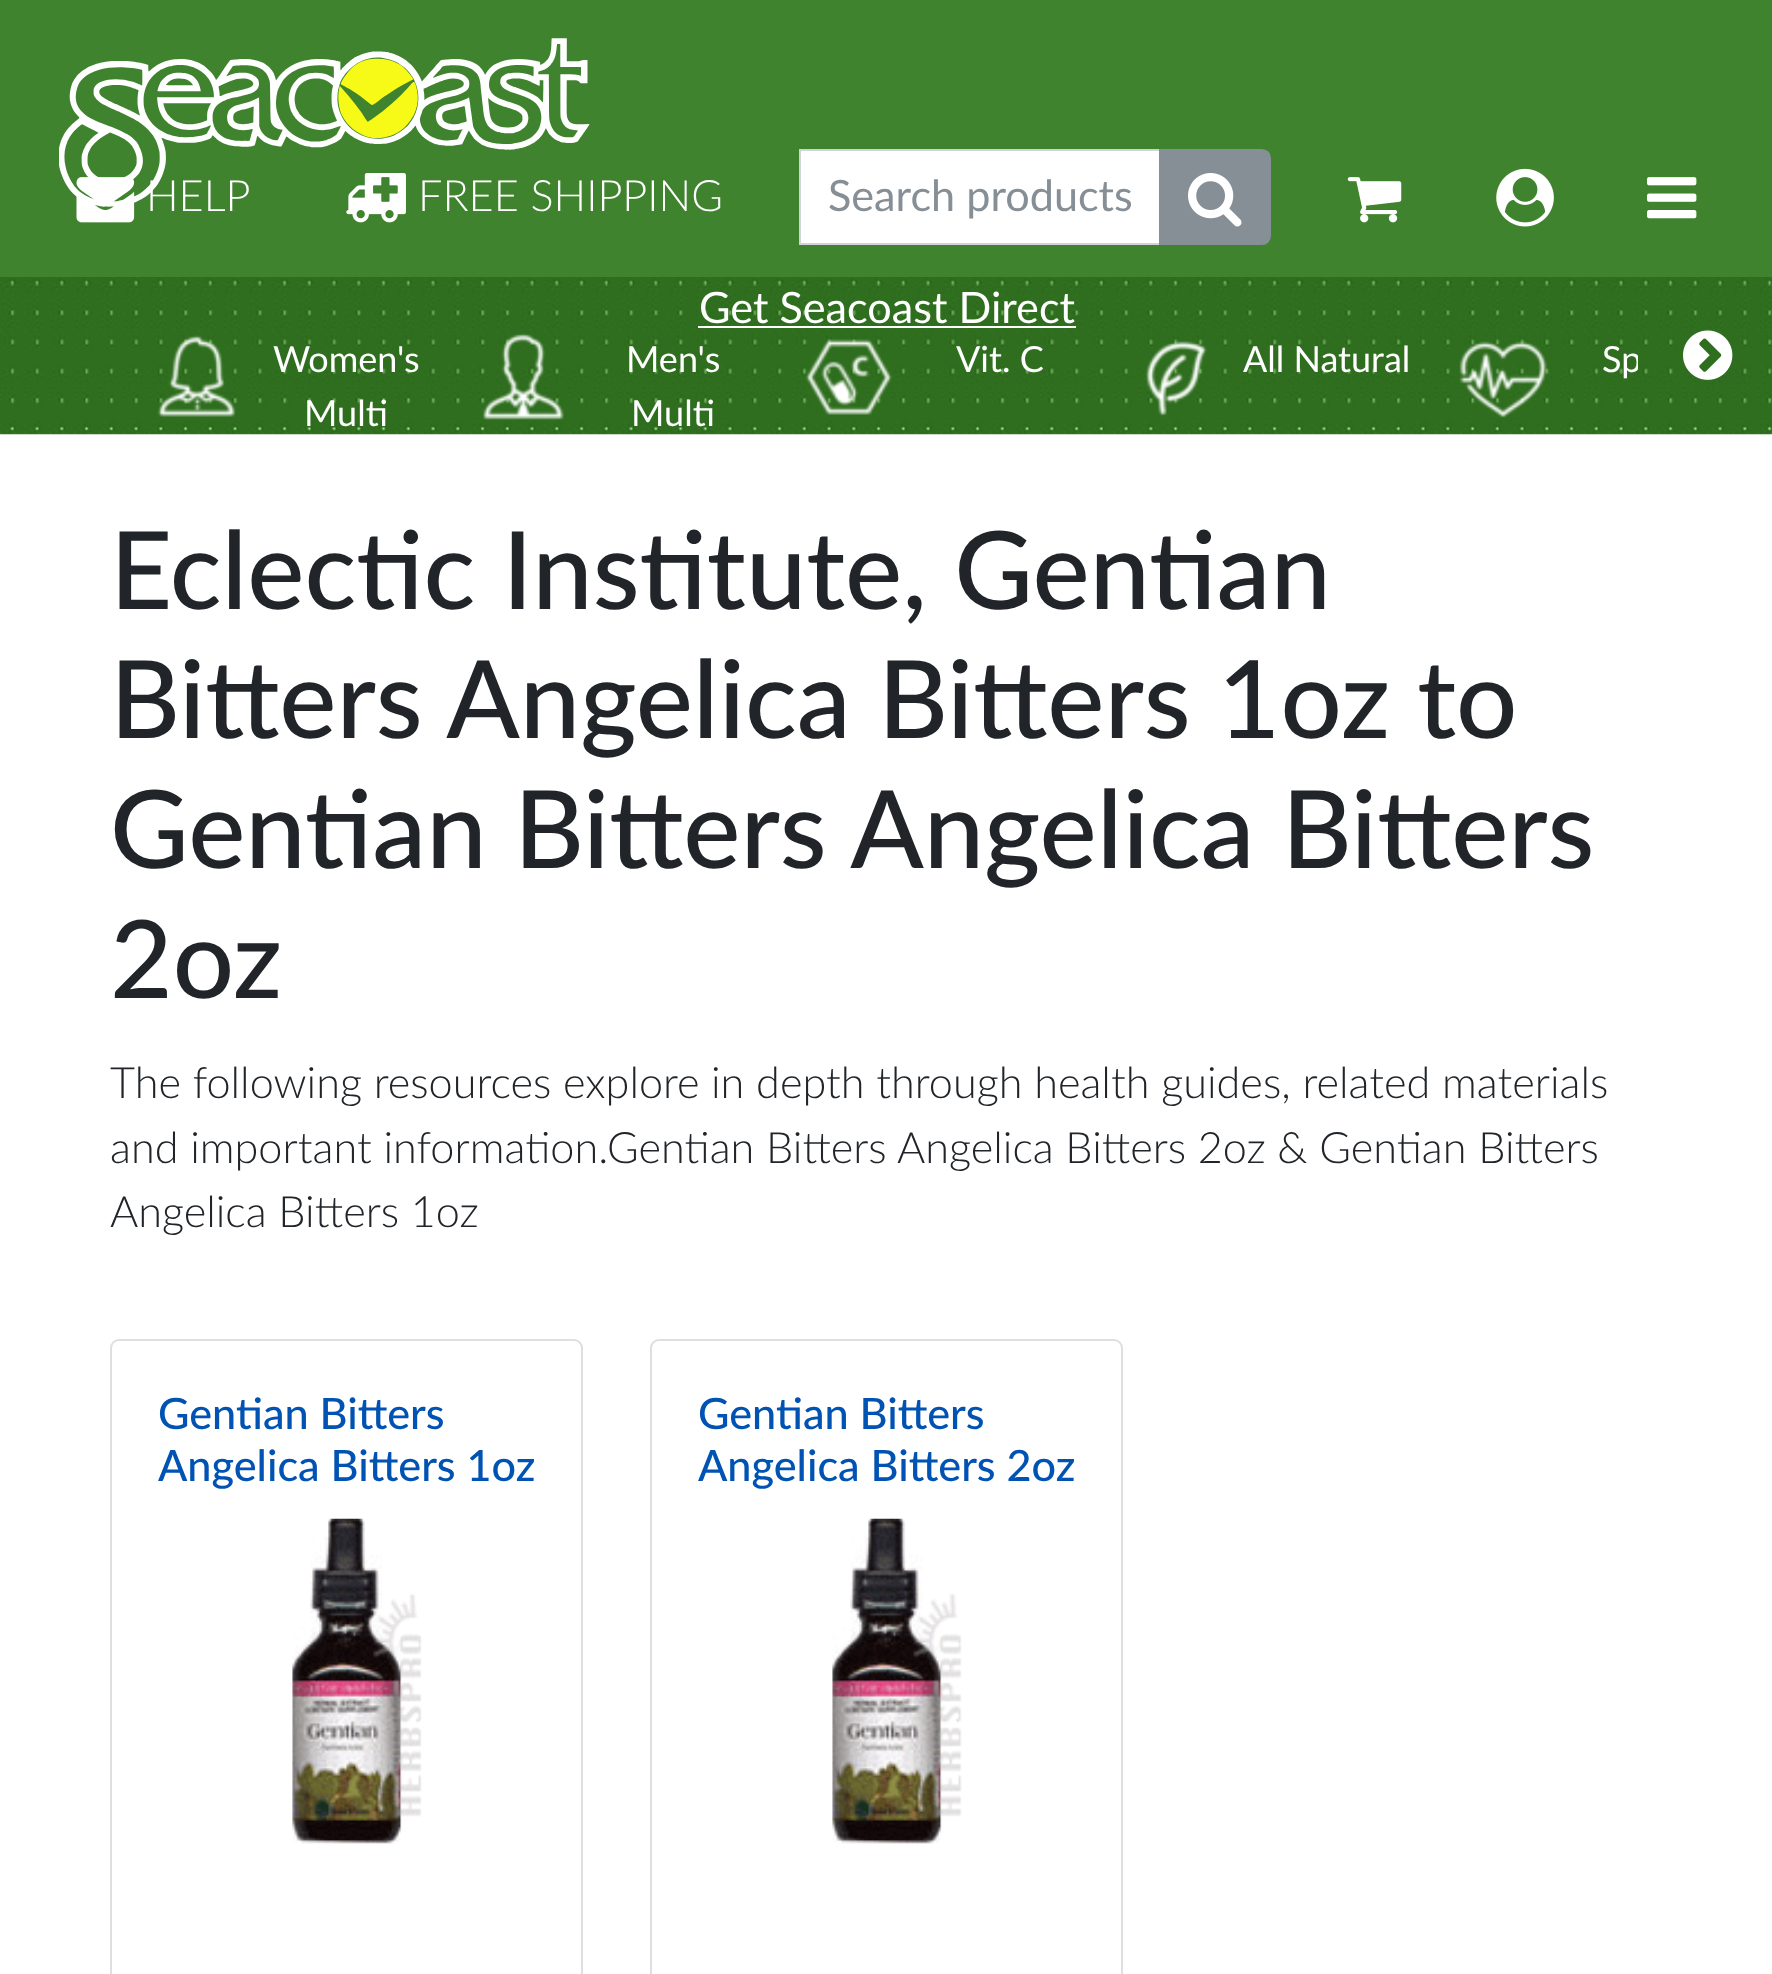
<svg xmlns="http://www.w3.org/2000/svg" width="1772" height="1974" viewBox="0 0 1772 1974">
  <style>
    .t1 { font: 300 43.2px Lato; fill: #fff; }
    .t2 { font: 43.2px Lato; fill: #868e96; }
    .t3 { font: 43.2px Lato; fill: #fff; }
    .t4 { font: 36px Lato; fill: #fff; }
    .t5 { font: 500 108px Lato; fill: #212529; }
    .t6 { font: 300 43.2px Lato; fill: #212529; }
    .t7 { font: 500 43.2px Lato; fill: #0053b3; }
  </style>
  <defs>
    <clipPath id="clip1"><rect x="135" y="297" width="1503" height="137"/></clipPath>
  </defs>
  <rect width="100%" height="100%" fill="#fff"/>
  <rect x="0" y="0" width="1772" height="277" fill="#40832e"/>
  <image x="59" y="38" width="531" height="169" href="images/1.png"/>
  <image x="76" y="177" width="59" height="46" href="images/2.png"/>
  <text x="146" y="211" class="t1">HELP</text>
  <image x="346" y="173" width="60" height="50" href="images/3.png"/>
  <text x="418" y="211" class="t1">FREE SHIPPING</text>
  <rect x="800" y="150" width="360" height="94" fill="#fff" stroke="#ced4da" stroke-width="2"/>
  <text x="828" y="211" class="t2">Search products</text>
  <path d="M1160 150H1262C1266.5 150 1270 153.5 1270 158V236C1270 240.5 1266.5 244 1262 244H1160Z" fill="#868e96" stroke="#868e96" stroke-width="2"/>
  <image x="1188" y="173" width="54" height="54" href="images/4.png"/>
  <image x="1347" y="177" width="55" height="46" href="images/5.png"/>
  <image x="1496" y="168" width="58" height="59" href="images/6.png"/>
  <image x="1647" y="177" width="50" height="42" href="images/7.png"/>
  <image x="0" y="277" width="1772" height="158" href="images/8.png"/>
  <text x="699" y="323" class="t3">Get Seacoast Direct</text>
  <rect x="698" y="326" width="378" height="2" fill="#fff"/>
  <image x="157" y="335" width="79" height="82" href="images/9.png"/>
  <text x="273" y="372" class="t4">Women's</text>
  <text x="304" y="426" class="t4">Multi</text>
  <image x="482" y="333" width="82" height="87" href="images/10.png"/>
  <text x="626" y="372" class="t4">Men's</text>
  <text x="631" y="426" class="t4">Multi</text>
  <image x="805" y="339" width="87" height="76" href="images/11.png"/>
  <text x="956" y="372" class="t4">Vit. C</text>
  <image x="1145" y="341" width="62" height="76" href="images/12.png"/>
  <text x="1243" y="372" class="t4">All Natural</text>
  <image x="1459" y="341" width="88" height="77" href="images/13.png"/>
  <g clip-path="url(#clip1)">
    <text x="1602" y="372" class="t4">Sp</text>
  </g>
  <image x="1683" y="330" width="50" height="50" href="images/14.png"/>
  <text x="110" y="609" class="t5">Eclectic Institute, Gentian</text>
  <text x="110" y="738" class="t5">Bitters Angelica Bitters 1oz to</text>
  <text x="110" y="868" class="t5">Gentian Bitters Angelica Bitters</text>
  <text x="110" y="998" class="t5">2oz</text>
  <text x="110" y="1098" class="t6">The following resources explore</text>
  <text x="711" y="1098" class="t6">in depth through health guides, related materials</text>
  <text x="110" y="1163" class="t6">and important information.Gentian Bitters Angelica Bitters 2oz &amp; Gentian Bitters</text>
  <text x="110" y="1227" class="t6">Angelica Bitters 1oz</text>
  <rect x="111" y="1340" width="471" height="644" rx="8" fill="none" stroke="#dfdfdf" stroke-width="2"/>
  <text x="158" y="1429" class="t7">Gentian Bitters</text>
  <text x="158" y="1481" class="t7">Angelica Bitters 1oz</text>
  <image x="292" y="1518" width="130" height="326" href="images/15.png"/>
  <rect x="651" y="1340" width="471" height="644" rx="8" fill="none" stroke="#dfdfdf" stroke-width="2"/>
  <text x="698" y="1429" class="t7">Gentian Bitters</text>
  <text x="698" y="1481" class="t7">Angelica Bitters 2oz</text>
  <image x="832" y="1518" width="130" height="326" href="images/15.png"/>
</svg>
